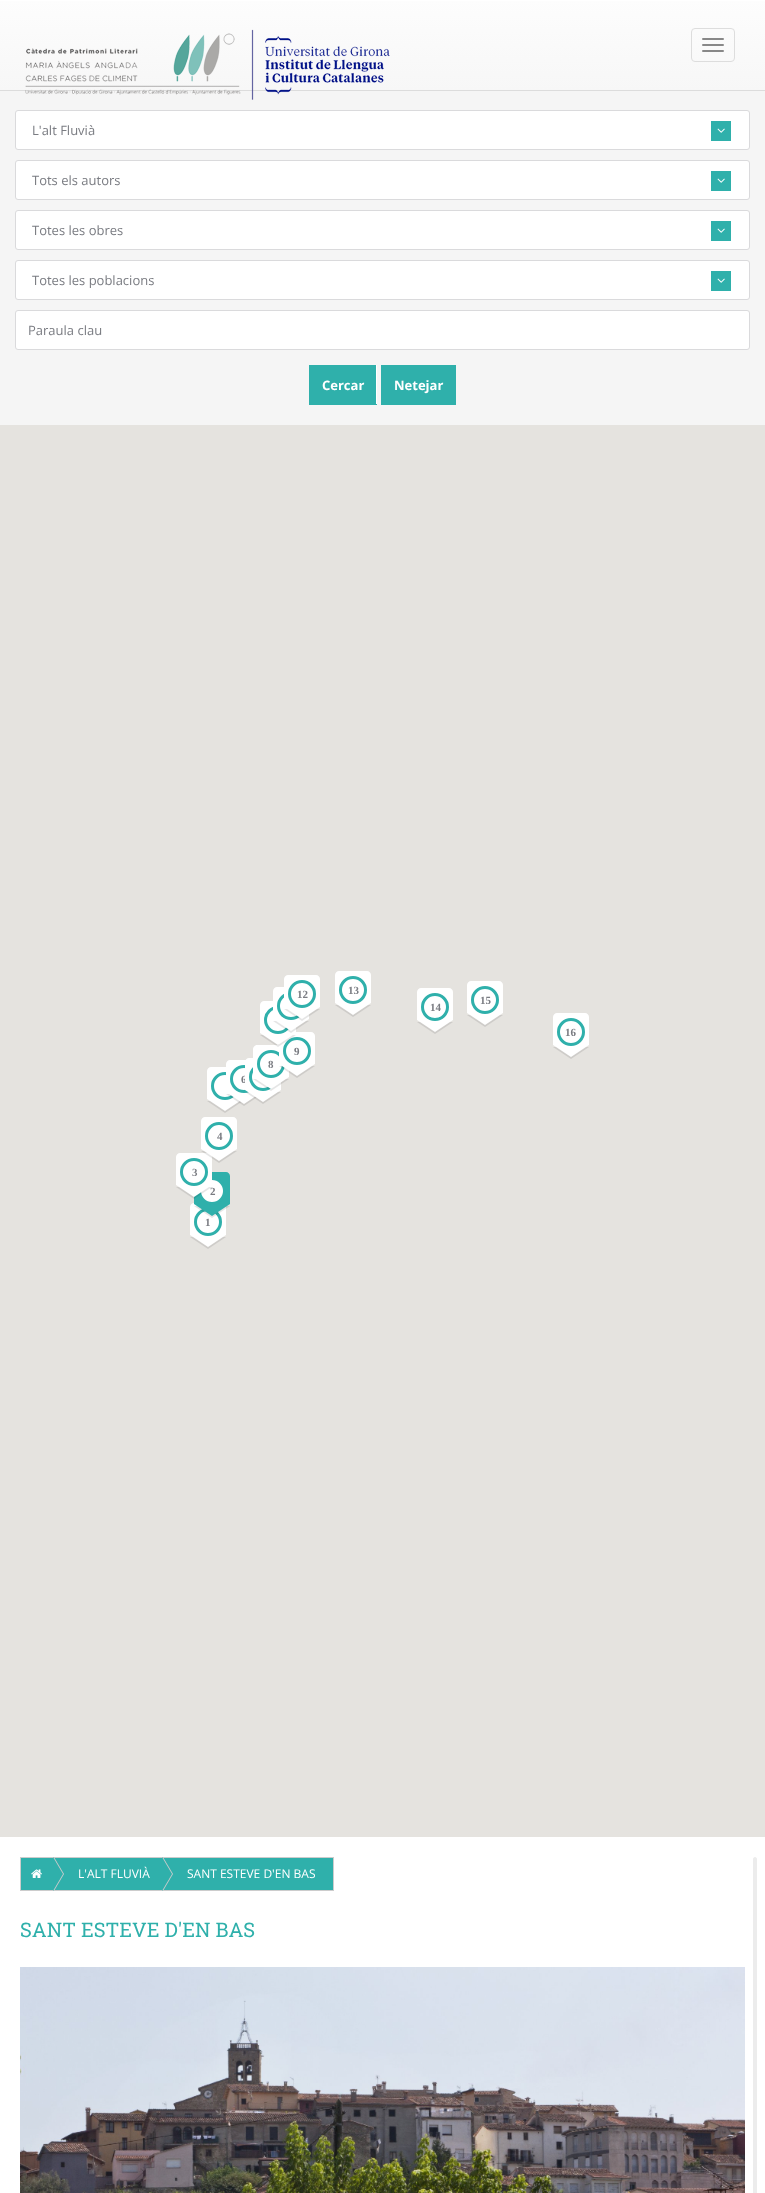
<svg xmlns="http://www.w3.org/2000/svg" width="765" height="2193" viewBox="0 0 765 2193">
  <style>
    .t1 { font: 13px Open Sans; fill: #7a7c82; }
    .t2 { font: bold 13px Open Sans; fill: #fff; }
    .t3 { font: bold 11px Liberation Serif; fill: #7a7c82; }
    .t4 { font: 12px Open Sans; fill: #fff; }
    .t5 { font: 20px Roboto Slab; fill: #2fb0ab; }
  </style>
  <defs>
    <linearGradient id="g1" gradientUnits="userSpaceOnUse" x1="383" y1="0" x2="383" y2="90"><stop offset="0" stop-color="#fdfdfd"/><stop offset="1" stop-color="#f7f7f7"/></linearGradient>
  </defs>
  <rect width="100%" height="100%" fill="#fff"/>
  <rect x="0" y="91" width="765" height="334" fill="#f5f5f5"/>
  <rect x="0" y="90" width="765" height="1" fill="#e8e8e8"/>
  <rect x="0" y="1" width="765" height="90" fill="#0000000d" filter="blur(0.5px)"/>
  <rect x="0" y="1" width="765" height="89" fill="url(#g1)"/>
  <image x="25" y="29" width="365" height="71" href="images/1.png"/>
  <rect x="691.5" y="28.5" width="43" height="33" rx="3.5" fill="none" stroke="#ddd"/>
  <rect x="702" y="38" width="22" height="2" rx="1" fill="#888"/>
  <rect x="702" y="44" width="22" height="2" rx="1" fill="#888"/>
  <rect x="702" y="50" width="22" height="2" rx="1" fill="#888"/>
  <rect x="15.5" y="110.5" width="734" height="39" rx="2.5" fill="#fff" stroke="#dadadc"/>
  <text x="32" y="135" class="t1">L'alt Fluvià</text>
  <rect x="711" y="121" width="20" height="20" fill="#2fb0ab"/>
  <image x="717" y="128" width="8" height="5" href="images/2.png"/>
  <rect x="15.5" y="160.5" width="734" height="39" rx="2.5" fill="#fff" stroke="#dadadc"/>
  <text x="32" y="185" class="t1">Tots els autors</text>
  <rect x="711" y="171" width="20" height="20" fill="#2fb0ab"/>
  <image x="717" y="178" width="8" height="5" href="images/2.png"/>
  <rect x="15.5" y="210.5" width="734" height="39" rx="2.5" fill="#fff" stroke="#dadadc"/>
  <text x="32" y="235" class="t1">Totes les obres</text>
  <rect x="711" y="221" width="20" height="20" fill="#2fb0ab"/>
  <image x="717" y="228" width="8" height="5" href="images/2.png"/>
  <rect x="15.5" y="260.5" width="734" height="39" rx="2.5" fill="#fff" stroke="#dadadc"/>
  <text x="32" y="285" class="t1">Totes les poblacions</text>
  <rect x="711" y="271" width="20" height="20" fill="#2fb0ab"/>
  <image x="717" y="278" width="8" height="5" href="images/2.png"/>
  <rect x="15.5" y="310.5" width="734" height="39" rx="2.5" fill="#fff" stroke="#dadadc"/>
  <text x="28" y="335" class="t1">Paraula clau</text>
  <rect x="309" y="365" width="67" height="39" fill="#2fb0ab"/>
  <rect x="376" y="365" width="1" height="40" fill="#fff"/>
  <rect x="309" y="404" width="68" height="1" fill="#2fb0ab"/>
  <text x="322" y="390" class="t2">Cercar</text>
  <rect x="381" y="365" width="75" height="40" fill="#2fb0ab"/>
  <text x="394" y="390" class="t2">Netejar</text>
  <rect x="0" y="425" width="765" height="1412" fill="#e5e3df"/>
  <path d="M211 1067H239C241 1067 243 1069 243 1071V1099H207V1071C207 1069 209 1067 211 1067Z" fill="#fff"/>
  <path d="M207 1101H243L225 1113Z" fill="#ceccc9"/>
  <path d="M207 1099H243L225 1111Z" fill="#fff"/>
  <circle cx="225" cy="1086" r="12.5" fill="none" stroke="#2fb0ab" stroke-width="3"/>
  <path d="M230 1060H258C260 1060 262 1062 262 1064V1092H226V1064C226 1062 228 1060 230 1060Z" fill="#fff"/>
  <path d="M226 1094H262L244 1106Z" fill="#0000001a"/>
  <path d="M226 1092H262L244 1104Z" fill="#fff"/>
  <circle cx="244" cy="1079" r="12.5" fill="none" stroke="#2fb0ab" stroke-width="3"/>
  <text x="241" y="1083" class="t3">6</text>
  <path d="M249 1058H277C279 1058 281 1060 281 1062V1090H245V1062C245 1060 247 1058 249 1058Z" fill="#fff"/>
  <path d="M245 1092H281L263 1104Z" fill="#0000001a"/>
  <path d="M245 1090H281L263 1102Z" fill="#fff"/>
  <circle cx="263" cy="1077" r="12.5" fill="none" stroke="#2fb0ab" stroke-width="3"/>
  <path d="M257 1045H285C287 1045 289 1047 289 1049V1077H253V1049C253 1047 255 1045 257 1045Z" fill="#fff"/>
  <path d="M253 1079H289L271 1091Z" fill="#0000001a"/>
  <path d="M253 1077H289L271 1089Z" fill="#fff"/>
  <circle cx="271" cy="1064" r="12.5" fill="none" stroke="#2fb0ab" stroke-width="3"/>
  <path d="M283 1032H311C313 1032 315 1034 315 1036V1064H279V1036C279 1034 281 1032 283 1032Z" fill="#fff"/>
  <path d="M264 1001H292C294 1001 296 1003 296 1005V1033H260V1005C260 1003 262 1001 264 1001Z" fill="#fff"/>
  <path d="M279 1066H315L297 1078Z" fill="#0000001a"/>
  <path d="M279 1064H315L297 1076Z" fill="#fff"/>
  <circle cx="297" cy="1051" r="12.5" fill="none" stroke="#2fb0ab" stroke-width="3"/>
  <path d="M260 1035H296L278 1047Z" fill="#0000001a"/>
  <path d="M260 1033H296L278 1045Z" fill="#fff"/>
  <circle cx="278" cy="1020" r="12.5" fill="none" stroke="#2fb0ab" stroke-width="3"/>
  <path d="M277 987H305C307 987 309 989 309 991V1019H273V991C273 989 275 987 277 987Z" fill="#fff"/>
  <path d="M273 1021H309L291 1033Z" fill="#0000001a"/>
  <path d="M273 1019H309L291 1031Z" fill="#fff"/>
  <circle cx="291" cy="1006" r="12.5" fill="none" stroke="#2fb0ab" stroke-width="3"/>
  <path d="M339 971H367C369 971 371 973 371 975V1003H335V975C335 973 337 971 339 971Z" fill="#fff"/>
  <path d="M335 1005H371L353 1017Z" fill="#ceccc9"/>
  <path d="M335 1003H371L353 1015Z" fill="#fff"/>
  <circle cx="353" cy="990" r="12.5" fill="none" stroke="#2fb0ab" stroke-width="3"/>
  <text x="348" y="994" class="t3">13</text>
  <path d="M288 975H316C318 975 320 977 320 979V1007H284V979C284 977 286 975 288 975Z" fill="#fff"/>
  <path d="M284 1009H320L302 1021Z" fill="#0000001a"/>
  <path d="M284 1007H320L302 1019Z" fill="#fff"/>
  <circle cx="302" cy="994" r="12.5" fill="none" stroke="#2fb0ab" stroke-width="3"/>
  <text x="297" y="998" class="t3">12</text>
  <path d="M421 988H449C451 988 453 990 453 992V1020H417V992C417 990 419 988 421 988Z" fill="#fff"/>
  <path d="M417 1022H453L435 1034Z" fill="#ceccc9"/>
  <path d="M417 1020H453L435 1032Z" fill="#fff"/>
  <circle cx="435" cy="1007" r="12.5" fill="none" stroke="#2fb0ab" stroke-width="3"/>
  <text x="430" y="1011" class="t3">14</text>
  <path d="M471 981H499C501 981 503 983 503 985V1013H467V985C467 983 469 981 471 981Z" fill="#fff"/>
  <path d="M467 1015H503L485 1027Z" fill="#ceccc9"/>
  <path d="M467 1013H503L485 1025Z" fill="#fff"/>
  <circle cx="485" cy="1000" r="12.5" fill="none" stroke="#2fb0ab" stroke-width="3"/>
  <text x="480" y="1004" class="t3">15</text>
  <path d="M557 1013H585C587 1013 589 1015 589 1017V1045H553V1017C553 1015 555 1013 557 1013Z" fill="#fff"/>
  <path d="M553 1047H589L571 1059Z" fill="#ceccc9"/>
  <path d="M553 1045H589L571 1057Z" fill="#fff"/>
  <circle cx="571" cy="1032" r="12.5" fill="none" stroke="#2fb0ab" stroke-width="3"/>
  <text x="565" y="1036" class="t3">16</text>
  <text x="294" y="1055" class="t3">9</text>
  <text x="268" y="1068" class="t3">8</text>
  <path d="M205 1117H233C235 1117 237 1119 237 1121V1149H201V1121C201 1119 203 1117 205 1117Z" fill="#fff"/>
  <path d="M194 1203H222C224 1203 226 1205 226 1207V1235H190V1207C190 1205 192 1203 194 1203Z" fill="#fff"/>
  <path d="M198 1172H226C228 1172 230 1174 230 1176V1204H194V1176C194 1174 196 1172 198 1172Z" fill="#2fb0ab"/>
  <path d="M190 1237H226L208 1249Z" fill="#ceccc9"/>
  <path d="M190 1235H226L208 1247Z" fill="#fff"/>
  <circle cx="208" cy="1222" r="12.5" fill="none" stroke="#2fb0ab" stroke-width="3"/>
  <path d="M194 1206H230L212 1218Z" fill="#0000001a"/>
  <path d="M194 1204H230L212 1216Z" fill="#2fb0ab"/>
  <circle cx="212" cy="1191" r="12.5" fill="#fff" stroke="#2fb0ab" stroke-width="3"/>
  <path d="M180 1153H208C210 1153 212 1155 212 1157V1185H176V1157C176 1155 178 1153 180 1153Z" fill="#fff"/>
  <path d="M176 1187H212L194 1199Z" fill="#0000001a"/>
  <text x="210" y="1195" class="t3">2</text>
  <path d="M176 1185H212L194 1197Z" fill="#fff"/>
  <circle cx="194" cy="1172" r="12.5" fill="none" stroke="#2fb0ab" stroke-width="3"/>
  <path d="M201 1151H237L219 1163Z" fill="#0000001a"/>
  <path d="M201 1149H237L219 1161Z" fill="#fff"/>
  <circle cx="219" cy="1136" r="12.5" fill="none" stroke="#2fb0ab" stroke-width="3"/>
  <text x="217" y="1140" class="t3">4</text>
  <text x="192" y="1176" class="t3">3</text>
  <text x="205" y="1226" class="t3">1</text>
  <rect x="20.5" y="1857.5" width="33" height="33" fill="#2fb0ab" stroke="#ccc"/>
  <rect x="53.5" y="1857.5" width="109" height="33" fill="#2fb0ab" stroke="#ccc"/>
  <path d="M54 1891V1857L64 1874Z" fill="#ccc"/>
  <path d="M53 1891V1857L63 1874Z" fill="#2fb0ab"/>
  <image x="31" y="1869" width="11" height="9" href="images/3.png"/>
  <rect x="162.5" y="1857.5" width="171" height="33" fill="#2fb0ab" stroke="#ccc"/>
  <path d="M163 1891V1857L173 1874Z" fill="#ccc"/>
  <path d="M162 1891V1857L172 1874Z" fill="#2fb0ab"/>
  <text x="78" y="1878" class="t4">L'ALT FLUVIÀ</text>
  <text x="187" y="1878" class="t4">SANT ESTEVE D'EN BAS</text>
  <text x="20" y="1937" class="t5">SANT ESTEVE D'EN BAS</text>
  <image x="20" y="1967" width="725" height="226" href="images/4.png"/>
  <path d="M755 1857C756 1857 757 1858 757 1859V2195H753V1859C753 1858 754 1857 755 1857Z" fill="#ececec"/>
</svg>
